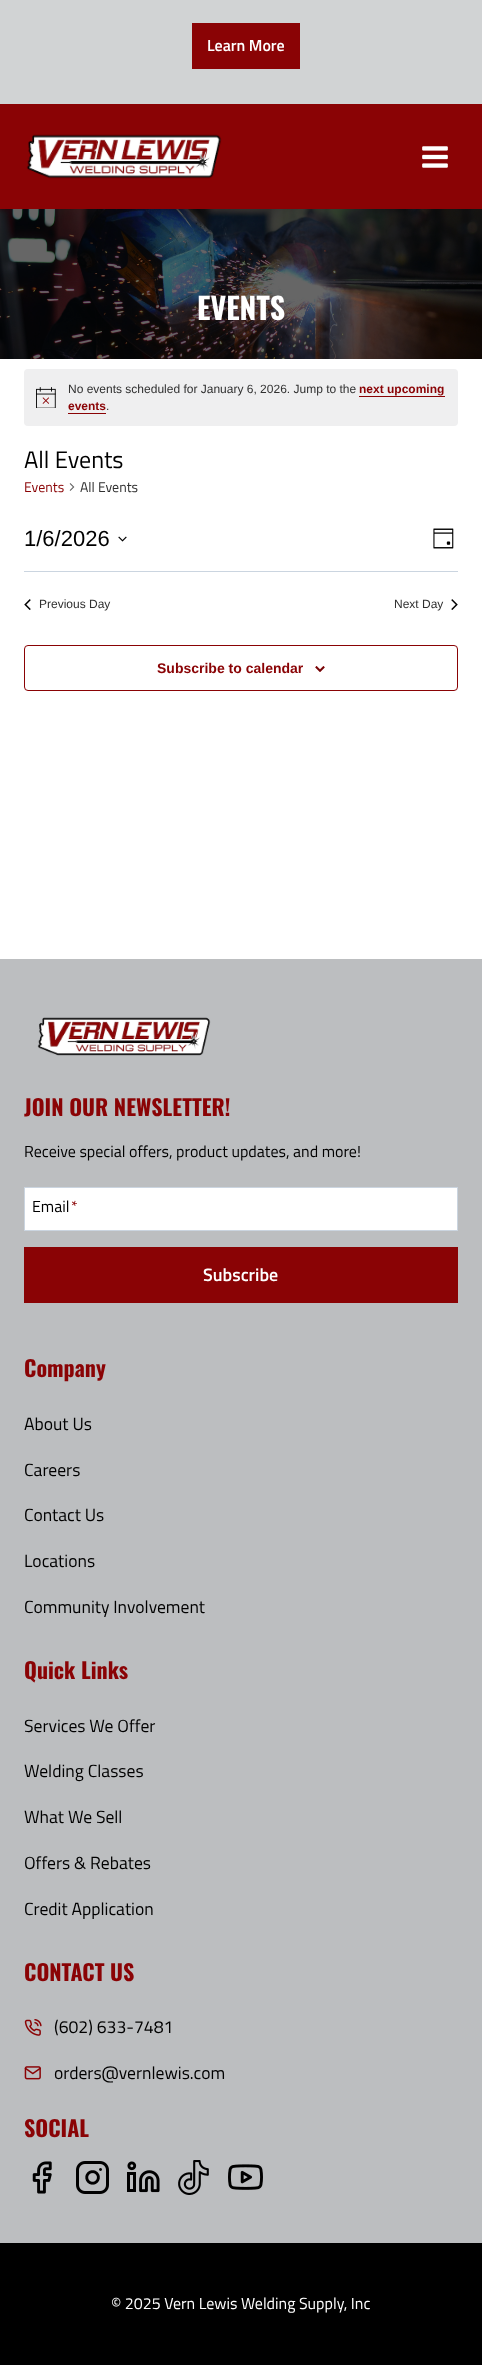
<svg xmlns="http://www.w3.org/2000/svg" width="482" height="2365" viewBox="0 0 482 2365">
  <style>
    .t1 { font: 600 16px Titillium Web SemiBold; fill: #fff; }
    .t2 { font: bold 30px Oswald; fill: #fff; }
    .t3 { font: 12px Liberation Sans; fill: #303030; }
    .t4 { font: bold 12px Liberation Sans; fill: #8a0305; }
    .t5 { font: 24px Titillium Web; fill: #000; }
    .t6 { font: 14px Titillium Web; fill: #8a0305; }
    .t7 { font: 14px Titillium Web; fill: #303030; }
    .t8 { font: 22px Liberation Sans; fill: #000; }
    .t9 { font: bold 14px Liberation Sans; fill: #8a0305; }
    .t10 { font: bold 22px Oswald; fill: #8a0305; }
    .t11 { font: 16px Titillium Web; fill: #000; }
    .t12 { font: 16px Titillium Web; fill: #8a0305; }
    .t13 { font: 600 18px Titillium Web SemiBold; fill: #fff; }
    .t14 { font: 17.6px Titillium Web; fill: #000; }
    .t15 { font: 16px Titillium Web; fill: #fff; }
  </style>
  <rect width="100%" height="100%" fill="#fff"/>
  <rect x="0" y="0" width="482" height="104" fill="#d1d3d4"/>
  <rect x="192" y="23" width="108" height="46" fill="#8a0305"/>
  <text x="207" y="51" class="t1">Learn More</text>
  <rect x="0" y="104" width="482" height="105" fill="#8a0305"/>
  <image x="26" y="134" width="196" height="45" href="images/1.png"/>
  <image x="422" y="146" width="26" height="22" href="images/2.png"/>
  <image x="0" y="209" width="482" height="150" href="images/3.png"/>
  <text x="197" y="320" class="t2">EVENTS</text>
  <rect x="24" y="369" width="434" height="57" rx="4" fill="#efeff0"/>
  <image x="36" y="387" width="20" height="21" href="images/4.png"/>
  <text x="68" y="393" class="t3">No events scheduled for January 6, 2026. Jump to the</text>
  <text x="359" y="393" class="t4">next upcoming</text>
  <rect x="359" y="396" width="86" height="1" fill="#8a0305"/>
  <text x="68" y="410" class="t4">events</text>
  <rect x="68" y="413" width="38" height="1" fill="#8a0305"/>
  <text x="106" y="410" class="t3">.</text>
  <text x="24" y="468" class="t5">All Events</text>
  <text x="24" y="492" class="t6">Events</text>
  <image x="69" y="483" width="6" height="8" href="images/5.png"/>
  <text x="80" y="492" class="t7">All Events</text>
  <text x="24" y="546" class="t8">1/6/2026</text>
  <image x="118" y="536" width="9" height="6" href="images/6.png"/>
  <image x="433" y="528" width="21" height="21" href="images/7.png"/>
  <rect x="24" y="571" width="434" height="1" fill="#cbd5e0"/>
  <image x="24" y="599" width="7" height="11" href="images/8.png"/>
  <text x="39" y="608" class="t3">Previous Day</text>
  <text x="394" y="608" class="t3">Next Day</text>
  <image x="451" y="599" width="7" height="11" href="images/9.png"/>
  <rect x="24.5" y="645.5" width="433" height="45" rx="3.5" fill="none" stroke="#8a0305"/>
  <text x="157" y="673" class="t9">Subscribe to calendar</text>
  <image x="315" y="666" width="10" height="6" href="images/10.png"/>
  <rect x="0" y="959" width="482" height="1284" fill="#bcbec0"/>
  <image x="37" y="1017" width="174" height="39" href="images/11.png"/>
  <text x="24" y="1116" class="t10">JOIN OUR NEWSLETTER!</text>
  <text x="24" y="1157" class="t11">Receive special offers, product updates, and more!</text>
  <rect x="24.5" y="1187.5" width="433" height="43" fill="#fff" stroke="#cbd5e0"/>
  <text x="32" y="1212" class="t11">Email</text>
  <text x="71" y="1212" class="t12">*</text>
  <rect x="24" y="1247" width="434" height="56" fill="#8a0305"/>
  <text x="203" y="1281" class="t13">Subscribe</text>
  <text x="24" y="1377" class="t10">Company</text>
  <text x="24" y="1430" class="t14">About Us</text>
  <text x="24" y="1476" class="t14">Careers</text>
  <text x="24" y="1521" class="t14">Contact Us</text>
  <text x="24" y="1567" class="t14">Locations</text>
  <text x="24" y="1613" class="t14">Community Involvement</text>
  <text x="24" y="1679" class="t10">Quick Links</text>
  <text x="24" y="1732" class="t14">Services We Offer</text>
  <text x="24" y="1777" class="t14">Welding Classes</text>
  <text x="24" y="1823" class="t14">What We Sell</text>
  <text x="24" y="1869" class="t14">Offers &amp; Rebates</text>
  <text x="24" y="1915" class="t14">Credit Application</text>
  <text x="24" y="1981" class="t10">CONTACT US</text>
  <image x="24" y="2019" width="18" height="17" href="images/12.png"/>
  <text x="54" y="2033" class="t14">(602) 633-7481</text>
  <image x="24" y="2066" width="17" height="14" href="images/13.png"/>
  <text x="54" y="2079" class="t14">orders@vernlewis.com</text>
  <text x="24" y="2137" class="t10">SOCIAL</text>
  <image x="32" y="2161" width="20" height="33" href="images/14.png"/>
  <image x="76" y="2161" width="33" height="33" href="images/15.png"/>
  <image x="127" y="2161" width="33" height="32" href="images/16.png"/>
  <image x="178" y="2160" width="31" height="35" href="images/17.png"/>
  <image x="228" y="2164" width="35" height="26" href="images/18.png"/>
  <rect x="0" y="2243" width="482" height="122" fill="#000"/>
  <text x="111" y="2309" class="t15">© 2025 Vern Lewis Welding Supply, Inc</text>
</svg>
